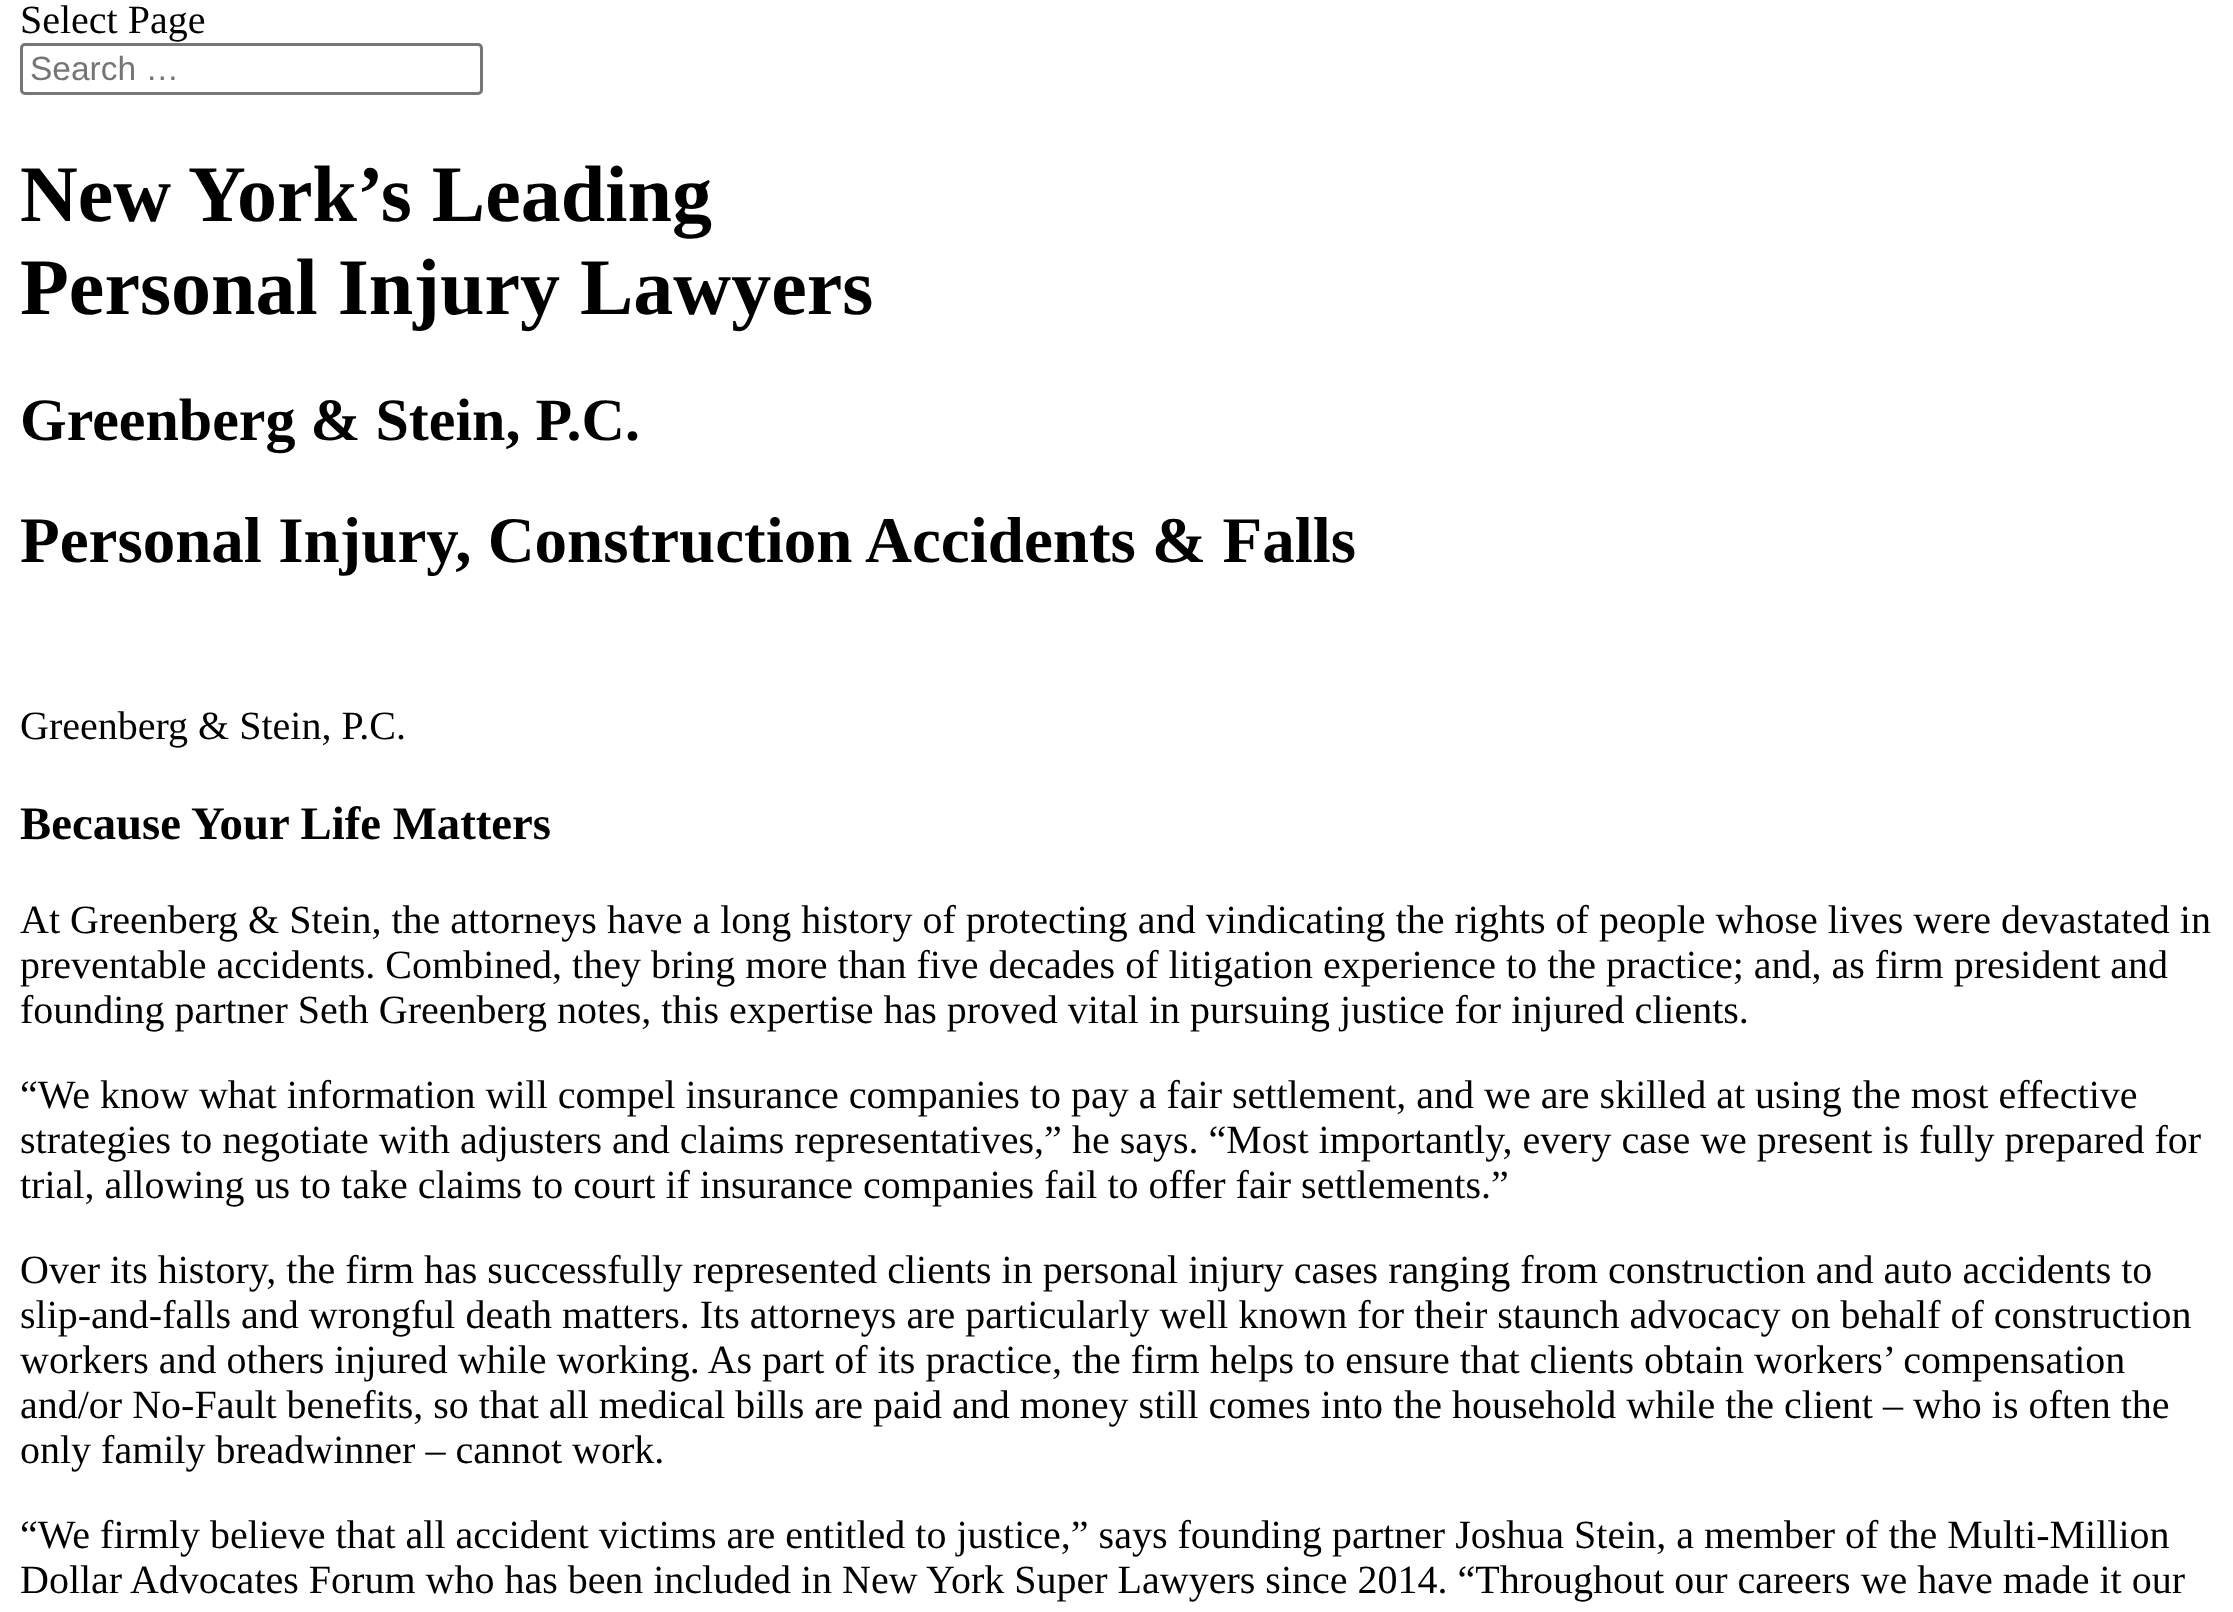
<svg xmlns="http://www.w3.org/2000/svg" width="2233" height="1612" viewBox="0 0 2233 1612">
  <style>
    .t1 { font: 40px Liberation Serif; fill: #000; }
    .t2 { font: 33.5px Liberation Sans; fill: #757575; }
    .t3 { font: bold 80px Liberation Serif; fill: #000; }
    .t4 { font: bold 60px Liberation Serif; fill: #000; }
    .t5 { font: bold 65px Liberation Serif; fill: #000; }
    .t6 { font: bold 46.75px Liberation Serif; fill: #000; }
  </style>
  <rect width="100%" height="100%" fill="#fff"/>
  <text x="20" y="33" class="t1">Select Page</text>
  <rect x="21.5" y="44.5" width="460" height="49" rx="3.5" fill="none" stroke="#767676" stroke-width="3"/>
  <text x="30" y="80" class="t2">Search …</text>
  <text x="20" y="221" class="t3">New York’s Leading</text>
  <text x="20" y="314" class="t3">Personal Injury Lawyers</text>
  <text x="20" y="440" class="t4">Greenberg &amp; Stein, P.C.</text>
  <text x="20" y="562" class="t5">Personal Injury, Construction Accidents &amp; Falls</text>
  <text x="20" y="739" class="t1">Greenberg &amp; Stein, P.C.</text>
  <text x="20" y="839" class="t6">Because Your Life Matters</text>
  <text x="20" y="933" class="t1">At Greenberg &amp; Stein, the attorneys have a long history of protecting and vindicating the rights of people whose lives were devastated in</text>
  <text x="20" y="978" class="t1">preventable accidents. Combined, they bring more than five decades of litigation experience to the practice; and, as firm president and</text>
  <text x="20" y="1023" class="t1">founding partner Seth Greenberg notes, this expertise has proved vital in pursuing justice for injured clients.</text>
  <text x="20" y="1108" class="t1">“We know what information will compel insurance companies to pay a fair settlement, and we are skilled at using the most effective</text>
  <text x="20" y="1153" class="t1">strategies to negotiate with adjusters and claims representatives,” he says. “Most importantly, every case we present is fully prepared for</text>
  <text x="20" y="1198" class="t1">trial, allowing us to take claims to court if insurance companies fail to offer fair settlements.”</text>
  <text x="20" y="1283" class="t1">Over its history, the firm has successfully represented clients in personal injury cases ranging from construction and auto accidents to</text>
  <text x="20" y="1328" class="t1">slip-and-falls and wrongful death matters. Its attorneys are particularly well known for their staunch advocacy on behalf of construction</text>
  <text x="20" y="1373" class="t1">workers and others injured while working. As part of its practice, the firm helps to ensure that clients obtain workers’ compensation</text>
  <text x="20" y="1418" class="t1">and/or No-Fault benefits, so that all medical bills are paid and money still comes into the household while the client – who is often the</text>
  <text x="20" y="1463" class="t1">only family breadwinner – cannot work.</text>
  <text x="20" y="1548" class="t1">“We firmly believe that all accident victims are entitled to justice,” says founding partner Joshua Stein, a member of the Multi-Million</text>
  <text x="20" y="1593" class="t1">Dollar Advocates Forum who has been included in New York Super Lawyers since 2014. “Throughout our careers we have made it our</text>
</svg>
